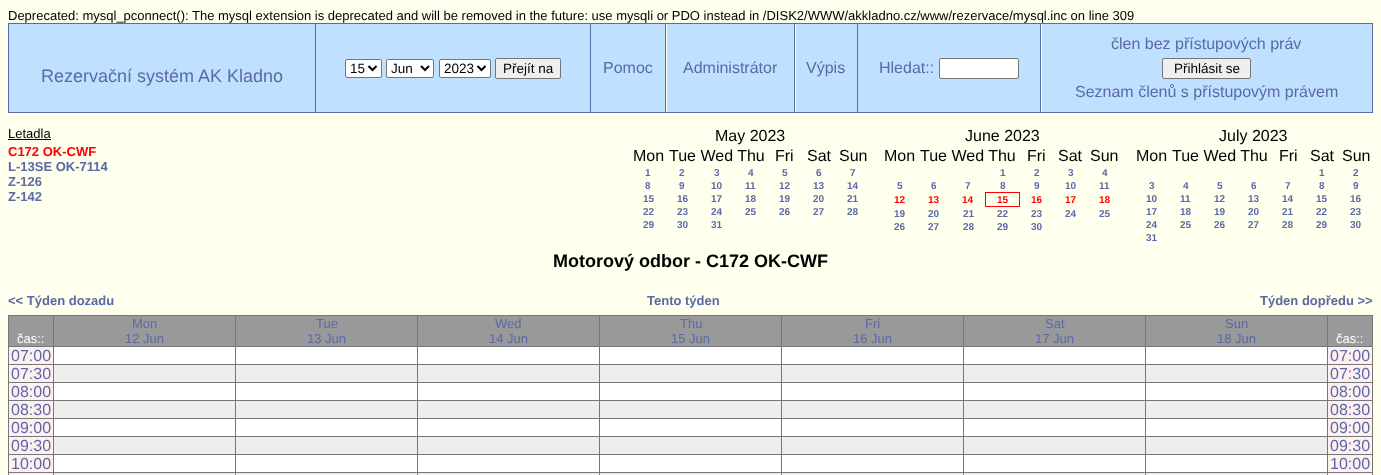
<svg xmlns="http://www.w3.org/2000/svg" width="1381" height="475" viewBox="0 0 1381 475">
  <style>
    .t1 { font: 13px Liberation Sans; fill: #000; }
    .t2 { font: 18px Liberation Sans; fill: #5b69a6; }
    .t3 { font: 13.5px Liberation Sans; fill: #000; }
    .t4 { font: 16px Liberation Sans; fill: #5b69a6; }
    .t5 { font: bold 13px Liberation Sans; fill: #f00; }
    .t6 { font: bold 13px Liberation Sans; fill: #5b69a6; }
    .t7 { font: 16px Liberation Sans; fill: #000; }
    .t8 { font: bold 10px Liberation Sans; fill: #5b69a6; }
    .t9 { font: bold 10px Liberation Sans; fill: #f00; }
    .t10 { font: bold 18px Liberation Sans; fill: #000; }
    .t11 { font: 13px Liberation Sans; fill: #fff; }
    .t12 { font: 13px Liberation Sans; fill: #5b69a6; }
  </style>
  <rect width="100%" height="100%" fill="#ffffed"/>
  <text x="8" y="20" class="t1">Deprecated: mysql_pconnect(): The mysql extension is deprecated and will be removed in the future: use mysqli or PDO instead in /DISK2/WWW/akkladno.cz/www/rezervace/mysql.inc on line 309</text>
  <rect x="8" y="23" width="1365" height="1" fill="#5b69a6"/>
  <rect x="1372" y="23" width="1" height="90" fill="#5b69a6"/>
  <rect x="8" y="112" width="1365" height="1" fill="#5b69a6"/>
  <rect x="8" y="23" width="1" height="90" fill="#5b69a6"/>
  <rect x="9" y="24" width="306" height="88" fill="#c0e0ff"/>
  <text x="41" y="82" class="t2">Rezervační systém AK Kladno</text>
  <rect x="316" y="24" width="274" height="88" fill="#c0e0ff"/>
  <rect x="315" y="23" width="1" height="90" fill="#5b69a6"/>
  <rect x="345.5" y="59.5" width="36" height="18" rx="1.5" fill="#fff" stroke="#767676"/>
  <path d="M368.5 66L372.5 70L376.5 66" fill="none" stroke="#000" stroke-width="2"/>
  <text x="350" y="73" class="t3">15</text>
  <rect x="386.5" y="59.5" width="47" height="18" rx="1.5" fill="#fff" stroke="#767676"/>
  <path d="M421 66L425 70L429 66" fill="none" stroke="#000" stroke-width="2"/>
  <text x="391" y="73" class="t3">Jun</text>
  <rect x="439.5" y="59.5" width="51" height="18" rx="1.5" fill="#fff" stroke="#767676"/>
  <path d="M477.5 66L481.5 70L485.5 66" fill="none" stroke="#000" stroke-width="2"/>
  <text x="444" y="73" class="t3">2023</text>
  <rect x="495.5" y="58.5" width="65" height="20" rx="1.5" fill="#efefef" stroke="#767676"/>
  <text x="503" y="73" class="t3">Přejít na</text>
  <rect x="591" y="24" width="74" height="88" fill="#c0e0ff"/>
  <rect x="590" y="23" width="1" height="90" fill="#5b69a6"/>
  <text x="603" y="73" class="t4">Pomoc</text>
  <rect x="667" y="24" width="127" height="88" fill="#c0e0ff"/>
  <rect x="665" y="23" width="1" height="90" fill="#5b69a6"/>
  <text x="683" y="73" class="t4">Administrátor</text>
  <rect x="796" y="24" width="61" height="88" fill="#c0e0ff"/>
  <rect x="794" y="23" width="1" height="90" fill="#5b69a6"/>
  <text x="806" y="73" class="t4">Výpis</text>
  <rect x="858" y="24" width="182" height="88" fill="#c0e0ff"/>
  <rect x="857" y="23" width="1" height="90" fill="#5b69a6"/>
  <text x="879" y="73" class="t4">Hledat::</text>
  <rect x="939.5" y="58.5" width="79" height="20" rx="1.5" fill="#fff" stroke="#767676"/>
  <rect x="1042" y="24" width="330" height="88" fill="#c0e0ff"/>
  <rect x="1040" y="23" width="1" height="90" fill="#5b69a6"/>
  <text x="1111" y="49" class="t4">člen bez přístupových práv</text>
  <rect x="1162.5" y="58.5" width="88" height="20" rx="1.5" fill="#efefef" stroke="#767676"/>
  <text x="1174" y="73" class="t3">Přihlásit se</text>
  <text x="1075" y="97" class="t4">Seznam členů s přístupovým právem</text>
  <text x="8" y="138" class="t1">Letadla</text>
  <rect x="8" y="139" width="43" height="1" fill="#000"/>
  <text x="8" y="156" class="t5">C172 OK-CWF</text>
  <text x="8" y="171" class="t6">L-13SE OK-7114</text>
  <text x="8" y="186" class="t6">Z-126</text>
  <text x="8" y="201" class="t6">Z-142</text>
  <text x="715" y="141" class="t7">May 2023</text>
  <text x="633" y="161" class="t7">Mon</text>
  <text x="669" y="161" class="t7">Tue Wed Thu</text>
  <text x="775" y="161" class="t7">Fri</text>
  <text x="807" y="161" class="t7">Sat</text>
  <text x="839" y="161" class="t7">Sun</text>
  <text x="645" y="176" class="t8">1</text>
  <text x="679" y="176" class="t8">2</text>
  <text x="714" y="176" class="t8">3</text>
  <text x="748" y="176" class="t8">4</text>
  <text x="782" y="176" class="t8">5</text>
  <text x="816" y="176" class="t8">6</text>
  <text x="850" y="176" class="t8">7</text>
  <text x="645" y="189" class="t8">8</text>
  <text x="679" y="189" class="t8">9</text>
  <text x="711" y="189" class="t8">10</text>
  <text x="745" y="189" class="t8">11</text>
  <text x="779" y="189" class="t8">12</text>
  <text x="813" y="189" class="t8">13</text>
  <text x="847" y="189" class="t8">14</text>
  <text x="643" y="202" class="t8">15</text>
  <text x="677" y="202" class="t8">16</text>
  <text x="711" y="202" class="t8">17</text>
  <text x="745" y="202" class="t8">18</text>
  <text x="779" y="202" class="t8">19</text>
  <text x="813" y="202" class="t8">20</text>
  <text x="847" y="202" class="t8">21</text>
  <text x="643" y="215" class="t8">22</text>
  <text x="677" y="215" class="t8">23</text>
  <text x="711" y="215" class="t8">24</text>
  <text x="745" y="215" class="t8">25</text>
  <text x="779" y="215" class="t8">26</text>
  <text x="813" y="215" class="t8">27</text>
  <text x="847" y="215" class="t8">28</text>
  <text x="643" y="228" class="t8">29</text>
  <text x="677" y="228" class="t8">30</text>
  <text x="711" y="228" class="t8">31</text>
  <text x="965" y="141" class="t7">June 2023</text>
  <text x="884" y="161" class="t7">Mon</text>
  <text x="920" y="161" class="t7">Tue Wed Thu</text>
  <text x="1027" y="161" class="t7">Fri</text>
  <text x="1058" y="161" class="t7">Sat</text>
  <text x="1090" y="161" class="t7">Sun</text>
  <text x="1000" y="176" class="t8">1</text>
  <text x="1034" y="176" class="t8">2</text>
  <text x="1068" y="176" class="t8">3</text>
  <text x="1102" y="176" class="t8">4</text>
  <text x="897" y="189" class="t8">5</text>
  <text x="931" y="189" class="t8">6</text>
  <text x="965" y="189" class="t8">7</text>
  <text x="1000" y="189" class="t8">8</text>
  <text x="1034" y="189" class="t8">9</text>
  <text x="1065" y="189" class="t8">10</text>
  <text x="1099" y="189" class="t8">11</text>
  <text x="894" y="203" class="t9">12</text>
  <text x="928" y="203" class="t9">13</text>
  <text x="962" y="203" class="t9">14</text>
  <rect x="985" y="192" width="35" height="1" fill="#f00"/>
  <rect x="1019" y="192" width="1" height="15" fill="#f00"/>
  <rect x="985" y="206" width="35" height="1" fill="#f00"/>
  <rect x="985" y="192" width="1" height="15" fill="#f00"/>
  <text x="997" y="203" class="t9">15</text>
  <text x="1031" y="203" class="t9">16</text>
  <text x="1065" y="203" class="t9">17</text>
  <text x="1099" y="203" class="t9">18</text>
  <text x="894" y="217" class="t8">19</text>
  <text x="928" y="217" class="t8">20</text>
  <text x="963" y="217" class="t8">21</text>
  <text x="997" y="217" class="t8">22</text>
  <text x="1031" y="217" class="t8">23</text>
  <text x="1065" y="217" class="t8">24</text>
  <text x="1099" y="217" class="t8">25</text>
  <text x="894" y="230" class="t8">26</text>
  <text x="928" y="230" class="t8">27</text>
  <text x="963" y="230" class="t8">28</text>
  <text x="997" y="230" class="t8">29</text>
  <text x="1031" y="230" class="t8">30</text>
  <text x="1219" y="141" class="t7">July 2023</text>
  <text x="1136" y="161" class="t7">Mon</text>
  <text x="1172" y="161" class="t7">Tue Wed Thu</text>
  <text x="1279" y="161" class="t7">Fri</text>
  <text x="1310" y="161" class="t7">Sat</text>
  <text x="1342" y="161" class="t7">Sun</text>
  <text x="1319" y="176" class="t8">1</text>
  <text x="1353" y="176" class="t8">2</text>
  <text x="1149" y="189" class="t8">3</text>
  <text x="1183" y="189" class="t8">4</text>
  <text x="1217" y="189" class="t8">5</text>
  <text x="1251" y="189" class="t8">6</text>
  <text x="1285" y="189" class="t8">7</text>
  <text x="1319" y="189" class="t8">8</text>
  <text x="1353" y="189" class="t8">9</text>
  <text x="1146" y="202" class="t8">10</text>
  <text x="1180" y="202" class="t8">11</text>
  <text x="1214" y="202" class="t8">12</text>
  <text x="1248" y="202" class="t8">13</text>
  <text x="1282" y="202" class="t8">14</text>
  <text x="1316" y="202" class="t8">15</text>
  <text x="1350" y="202" class="t8">16</text>
  <text x="1146" y="215" class="t8">17</text>
  <text x="1180" y="215" class="t8">18</text>
  <text x="1214" y="215" class="t8">19</text>
  <text x="1248" y="215" class="t8">20</text>
  <text x="1282" y="215" class="t8">21</text>
  <text x="1316" y="215" class="t8">22</text>
  <text x="1350" y="215" class="t8">23</text>
  <text x="1146" y="228" class="t8">24</text>
  <text x="1180" y="228" class="t8">25</text>
  <text x="1214" y="228" class="t8">26</text>
  <text x="1248" y="228" class="t8">27</text>
  <text x="1282" y="228" class="t8">28</text>
  <text x="1316" y="228" class="t8">29</text>
  <text x="1350" y="228" class="t8">30</text>
  <text x="1146" y="241" class="t8">31</text>
  <text x="553" y="267" class="t10">Motorový odbor - C172 OK-CWF</text>
  <text x="8" y="305" class="t6">&lt;&lt; Týden dozadu</text>
  <text x="647" y="305" class="t6">Tento týden</text>
  <text x="1260" y="305" class="t6">Týden dopředu &gt;&gt;</text>
  <rect x="8.5" y="315.5" width="1364" height="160" fill="none" stroke="#777"/>
  <rect x="9" y="316" width="44" height="30" fill="#999"/>
  <text x="17" y="343" class="t11">čas::</text>
  <rect x="54" y="316" width="181" height="30" fill="#999"/>
  <rect x="53" y="316" width="1" height="30" fill="#777"/>
  <text x="132" y="328" class="t12">Mon</text>
  <text x="125" y="343" class="t12">12 Jun</text>
  <rect x="236" y="316" width="181" height="30" fill="#999"/>
  <rect x="235" y="316" width="1" height="30" fill="#777"/>
  <text x="316" y="328" class="t12">Tue</text>
  <text x="307" y="343" class="t12">13 Jun</text>
  <rect x="418" y="316" width="181" height="30" fill="#999"/>
  <rect x="417" y="316" width="1" height="30" fill="#777"/>
  <text x="495" y="328" class="t12">Wed</text>
  <text x="489" y="343" class="t12">14 Jun</text>
  <rect x="600" y="316" width="181" height="30" fill="#999"/>
  <rect x="599" y="316" width="1" height="30" fill="#777"/>
  <text x="680" y="328" class="t12">Thu</text>
  <text x="671" y="343" class="t12">15 Jun</text>
  <rect x="782" y="316" width="181" height="30" fill="#999"/>
  <rect x="781" y="316" width="1" height="30" fill="#777"/>
  <text x="865" y="328" class="t12">Fri</text>
  <text x="853" y="343" class="t12">16 Jun</text>
  <rect x="964" y="316" width="181" height="30" fill="#999"/>
  <rect x="963" y="316" width="1" height="30" fill="#777"/>
  <text x="1045" y="328" class="t12">Sat</text>
  <text x="1035" y="343" class="t12">17 Jun</text>
  <rect x="1146" y="316" width="181" height="30" fill="#999"/>
  <rect x="1145" y="316" width="1" height="30" fill="#777"/>
  <text x="1225" y="328" class="t12">Sun</text>
  <text x="1217" y="343" class="t12">18 Jun</text>
  <rect x="1328" y="316" width="44" height="30" fill="#999"/>
  <rect x="1327" y="316" width="1" height="30" fill="#777"/>
  <text x="1336" y="343" class="t11">čas::</text>
  <rect x="9" y="347" width="44" height="17" fill="#fff0f0"/>
  <rect x="9" y="346" width="1363" height="1" fill="#777"/>
  <text x="11" y="361" class="t4">07:00</text>
  <rect x="54" y="347" width="181" height="17" fill="#fff"/>
  <rect x="53" y="346" width="1" height="18" fill="#777"/>
  <rect x="236" y="347" width="181" height="17" fill="#fff"/>
  <rect x="235" y="346" width="1" height="18" fill="#777"/>
  <rect x="418" y="347" width="181" height="17" fill="#fff"/>
  <rect x="417" y="346" width="1" height="18" fill="#777"/>
  <rect x="600" y="347" width="181" height="17" fill="#fff"/>
  <rect x="599" y="346" width="1" height="18" fill="#777"/>
  <rect x="782" y="347" width="181" height="17" fill="#fff"/>
  <rect x="781" y="346" width="1" height="18" fill="#777"/>
  <rect x="964" y="347" width="181" height="17" fill="#fff"/>
  <rect x="963" y="346" width="1" height="18" fill="#777"/>
  <rect x="1146" y="347" width="181" height="17" fill="#fff"/>
  <rect x="1145" y="346" width="1" height="18" fill="#777"/>
  <rect x="1328" y="347" width="44" height="17" fill="#fff0f0"/>
  <rect x="1327" y="346" width="1" height="18" fill="#777"/>
  <text x="1330" y="361" class="t4">07:00</text>
  <rect x="9" y="365" width="44" height="17" fill="#fff0f0"/>
  <rect x="9" y="364" width="1363" height="1" fill="#777"/>
  <text x="11" y="379" class="t4">07:30</text>
  <rect x="54" y="365" width="181" height="17" fill="#eee"/>
  <rect x="53" y="364" width="1" height="18" fill="#777"/>
  <rect x="236" y="365" width="181" height="17" fill="#eee"/>
  <rect x="235" y="364" width="1" height="18" fill="#777"/>
  <rect x="418" y="365" width="181" height="17" fill="#eee"/>
  <rect x="417" y="364" width="1" height="18" fill="#777"/>
  <rect x="600" y="365" width="181" height="17" fill="#eee"/>
  <rect x="599" y="364" width="1" height="18" fill="#777"/>
  <rect x="782" y="365" width="181" height="17" fill="#eee"/>
  <rect x="781" y="364" width="1" height="18" fill="#777"/>
  <rect x="964" y="365" width="181" height="17" fill="#eee"/>
  <rect x="963" y="364" width="1" height="18" fill="#777"/>
  <rect x="1146" y="365" width="181" height="17" fill="#eee"/>
  <rect x="1145" y="364" width="1" height="18" fill="#777"/>
  <rect x="1328" y="365" width="44" height="17" fill="#fff0f0"/>
  <rect x="1327" y="364" width="1" height="18" fill="#777"/>
  <text x="1330" y="379" class="t4">07:30</text>
  <rect x="9" y="383" width="44" height="17" fill="#fff0f0"/>
  <rect x="9" y="382" width="1363" height="1" fill="#777"/>
  <text x="11" y="397" class="t4">08:00</text>
  <rect x="54" y="383" width="181" height="17" fill="#fff"/>
  <rect x="53" y="382" width="1" height="18" fill="#777"/>
  <rect x="236" y="383" width="181" height="17" fill="#fff"/>
  <rect x="235" y="382" width="1" height="18" fill="#777"/>
  <rect x="418" y="383" width="181" height="17" fill="#fff"/>
  <rect x="417" y="382" width="1" height="18" fill="#777"/>
  <rect x="600" y="383" width="181" height="17" fill="#fff"/>
  <rect x="599" y="382" width="1" height="18" fill="#777"/>
  <rect x="782" y="383" width="181" height="17" fill="#fff"/>
  <rect x="781" y="382" width="1" height="18" fill="#777"/>
  <rect x="964" y="383" width="181" height="17" fill="#fff"/>
  <rect x="963" y="382" width="1" height="18" fill="#777"/>
  <rect x="1146" y="383" width="181" height="17" fill="#fff"/>
  <rect x="1145" y="382" width="1" height="18" fill="#777"/>
  <rect x="1328" y="383" width="44" height="17" fill="#fff0f0"/>
  <rect x="1327" y="382" width="1" height="18" fill="#777"/>
  <text x="1330" y="397" class="t4">08:00</text>
  <rect x="9" y="401" width="44" height="17" fill="#fff0f0"/>
  <rect x="9" y="400" width="1363" height="1" fill="#777"/>
  <text x="11" y="415" class="t4">08:30</text>
  <rect x="54" y="401" width="181" height="17" fill="#eee"/>
  <rect x="53" y="400" width="1" height="18" fill="#777"/>
  <rect x="236" y="401" width="181" height="17" fill="#eee"/>
  <rect x="235" y="400" width="1" height="18" fill="#777"/>
  <rect x="418" y="401" width="181" height="17" fill="#eee"/>
  <rect x="417" y="400" width="1" height="18" fill="#777"/>
  <rect x="600" y="401" width="181" height="17" fill="#eee"/>
  <rect x="599" y="400" width="1" height="18" fill="#777"/>
  <rect x="782" y="401" width="181" height="17" fill="#eee"/>
  <rect x="781" y="400" width="1" height="18" fill="#777"/>
  <rect x="964" y="401" width="181" height="17" fill="#eee"/>
  <rect x="963" y="400" width="1" height="18" fill="#777"/>
  <rect x="1146" y="401" width="181" height="17" fill="#eee"/>
  <rect x="1145" y="400" width="1" height="18" fill="#777"/>
  <rect x="1328" y="401" width="44" height="17" fill="#fff0f0"/>
  <rect x="1327" y="400" width="1" height="18" fill="#777"/>
  <text x="1330" y="415" class="t4">08:30</text>
  <rect x="9" y="419" width="44" height="17" fill="#fff0f0"/>
  <rect x="9" y="418" width="1363" height="1" fill="#777"/>
  <text x="11" y="433" class="t4">09:00</text>
  <rect x="54" y="419" width="181" height="17" fill="#fff"/>
  <rect x="53" y="418" width="1" height="18" fill="#777"/>
  <rect x="236" y="419" width="181" height="17" fill="#fff"/>
  <rect x="235" y="418" width="1" height="18" fill="#777"/>
  <rect x="418" y="419" width="181" height="17" fill="#fff"/>
  <rect x="417" y="418" width="1" height="18" fill="#777"/>
  <rect x="600" y="419" width="181" height="17" fill="#fff"/>
  <rect x="599" y="418" width="1" height="18" fill="#777"/>
  <rect x="782" y="419" width="181" height="17" fill="#fff"/>
  <rect x="781" y="418" width="1" height="18" fill="#777"/>
  <rect x="964" y="419" width="181" height="17" fill="#fff"/>
  <rect x="963" y="418" width="1" height="18" fill="#777"/>
  <rect x="1146" y="419" width="181" height="17" fill="#fff"/>
  <rect x="1145" y="418" width="1" height="18" fill="#777"/>
  <rect x="1328" y="419" width="44" height="17" fill="#fff0f0"/>
  <rect x="1327" y="418" width="1" height="18" fill="#777"/>
  <text x="1330" y="433" class="t4">09:00</text>
  <rect x="9" y="437" width="44" height="17" fill="#fff0f0"/>
  <rect x="9" y="436" width="1363" height="1" fill="#777"/>
  <text x="11" y="451" class="t4">09:30</text>
  <rect x="54" y="437" width="181" height="17" fill="#eee"/>
  <rect x="53" y="436" width="1" height="18" fill="#777"/>
  <rect x="236" y="437" width="181" height="17" fill="#eee"/>
  <rect x="235" y="436" width="1" height="18" fill="#777"/>
  <rect x="418" y="437" width="181" height="17" fill="#eee"/>
  <rect x="417" y="436" width="1" height="18" fill="#777"/>
  <rect x="600" y="437" width="181" height="17" fill="#eee"/>
  <rect x="599" y="436" width="1" height="18" fill="#777"/>
  <rect x="782" y="437" width="181" height="17" fill="#eee"/>
  <rect x="781" y="436" width="1" height="18" fill="#777"/>
  <rect x="964" y="437" width="181" height="17" fill="#eee"/>
  <rect x="963" y="436" width="1" height="18" fill="#777"/>
  <rect x="1146" y="437" width="181" height="17" fill="#eee"/>
  <rect x="1145" y="436" width="1" height="18" fill="#777"/>
  <rect x="1328" y="437" width="44" height="17" fill="#fff0f0"/>
  <rect x="1327" y="436" width="1" height="18" fill="#777"/>
  <text x="1330" y="451" class="t4">09:30</text>
  <rect x="9" y="455" width="44" height="17" fill="#fff0f0"/>
  <rect x="9" y="454" width="1363" height="1" fill="#777"/>
  <text x="11" y="469" class="t4">10:00</text>
  <rect x="54" y="455" width="181" height="17" fill="#fff"/>
  <rect x="53" y="454" width="1" height="18" fill="#777"/>
  <rect x="236" y="455" width="181" height="17" fill="#fff"/>
  <rect x="235" y="454" width="1" height="18" fill="#777"/>
  <rect x="418" y="455" width="181" height="17" fill="#fff"/>
  <rect x="417" y="454" width="1" height="18" fill="#777"/>
  <rect x="600" y="455" width="181" height="17" fill="#fff"/>
  <rect x="599" y="454" width="1" height="18" fill="#777"/>
  <rect x="782" y="455" width="181" height="17" fill="#fff"/>
  <rect x="781" y="454" width="1" height="18" fill="#777"/>
  <rect x="964" y="455" width="181" height="17" fill="#fff"/>
  <rect x="963" y="454" width="1" height="18" fill="#777"/>
  <rect x="1146" y="455" width="181" height="17" fill="#fff"/>
  <rect x="1145" y="454" width="1" height="18" fill="#777"/>
  <rect x="1328" y="455" width="44" height="17" fill="#fff0f0"/>
  <rect x="1327" y="454" width="1" height="18" fill="#777"/>
  <text x="1330" y="469" class="t4">10:00</text>
  <rect x="9" y="473" width="44" height="2" fill="#fff0f0"/>
  <rect x="9" y="472" width="1363" height="1" fill="#777"/>
  <rect x="53" y="473" width="1274" height="2" fill="#eee"/>
  <rect x="53" y="472" width="1" height="3" fill="#777"/>
  <rect x="235" y="472" width="1" height="3" fill="#777"/>
  <rect x="417" y="472" width="1" height="3" fill="#777"/>
  <rect x="599" y="472" width="1" height="3" fill="#777"/>
  <rect x="781" y="472" width="1" height="3" fill="#777"/>
  <rect x="963" y="472" width="1" height="3" fill="#777"/>
  <rect x="1145" y="472" width="1" height="3" fill="#777"/>
  <rect x="1327" y="473" width="45" height="2" fill="#fff0f0"/>
  <rect x="1327" y="472" width="1" height="3" fill="#777"/>
</svg>
